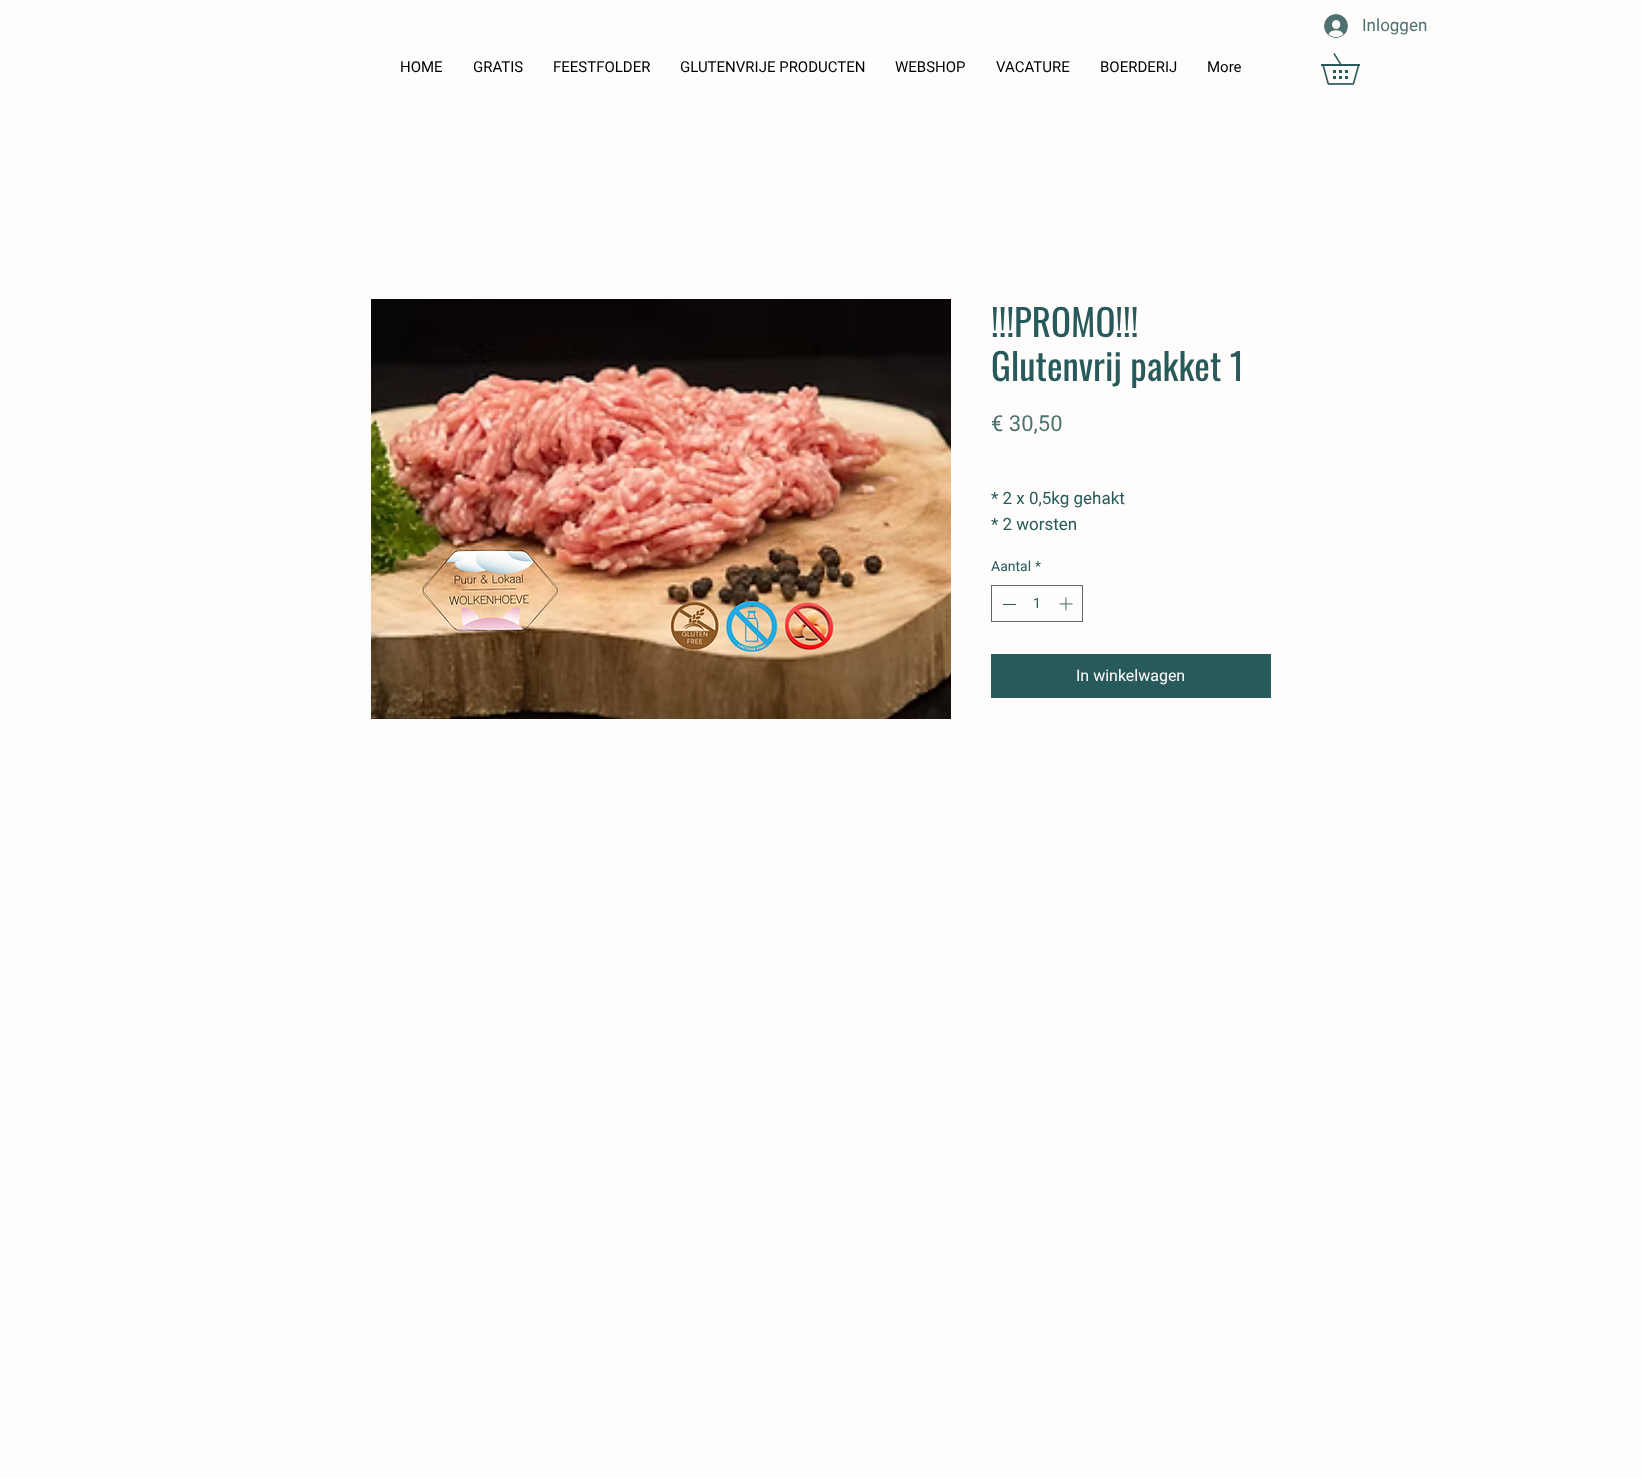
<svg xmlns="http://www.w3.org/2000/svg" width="1641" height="1478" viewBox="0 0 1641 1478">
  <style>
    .t1 { font: 17px Roboto; fill: #4f7170; }
    .t2 { font: 15px Roboto; fill: #000; }
    .t3 { font: 37px Oswald; fill: #285a5b; }
    .t4 { font: 22px Roboto; fill: #4f7170; }
    .t5 { font: 17px Roboto; fill: #285a5b; }
    .t6 { font: 14px Roboto; fill: #285a5b; }
    .t7 { font: 16px Roboto; fill: #fffdfb; }
  </style>
  <rect width="100%" height="100%" fill="#fffdfb"/>
  <image x="1324" y="14" width="24" height="24" href="images/1.png"/>
  <text x="1362" y="31" class="t1">Inloggen</text>
  <image x="1321" y="53" width="39" height="32" href="images/2.png"/>
  <text x="400" y="72" class="t2">HOME</text>
  <text x="473" y="72" class="t2">GRATIS</text>
  <text x="553" y="72" class="t2">FEESTFOLDER</text>
  <text x="680" y="72" class="t2">GLUTENVRIJE PRODUCTEN</text>
  <text x="895" y="72" class="t2">WEBSHOP</text>
  <text x="996" y="72" class="t2">VACATURE</text>
  <text x="1100" y="72" class="t2">BOERDERIJ</text>
  <text x="1207" y="72" class="t2">More</text>
  <image x="371" y="299" width="580" height="420" href="images/3.png"/>
  <text x="991" y="337" class="t3">!!!PROMO!!!</text>
  <text x="991" y="381" class="t3">Glutenvrij pakket 1</text>
  <text x="991" y="431" class="t4">€ 30,50</text>
  <text x="991" y="504" class="t5">* 2 x 0,5kg gehakt</text>
  <text x="991" y="530" class="t5">* 2 worsten</text>
  <text x="991" y="571" class="t6">Aantal</text>
  <text x="1035" y="571" class="t6">*</text>
  <rect x="991.5" y="585.5" width="91" height="36" fill="none" stroke="#666564"/>
  <rect x="1003" y="604" width="13" height="1" fill="#285a5b"/>
  <text x="1033" y="608" class="t6">1</text>
  <image x="1059" y="597" width="14" height="14" href="images/4.png"/>
  <rect x="991" y="654" width="280" height="44" fill="#285a5b"/>
  <text x="1076" y="681" class="t7">In winkelwagen</text>
</svg>
